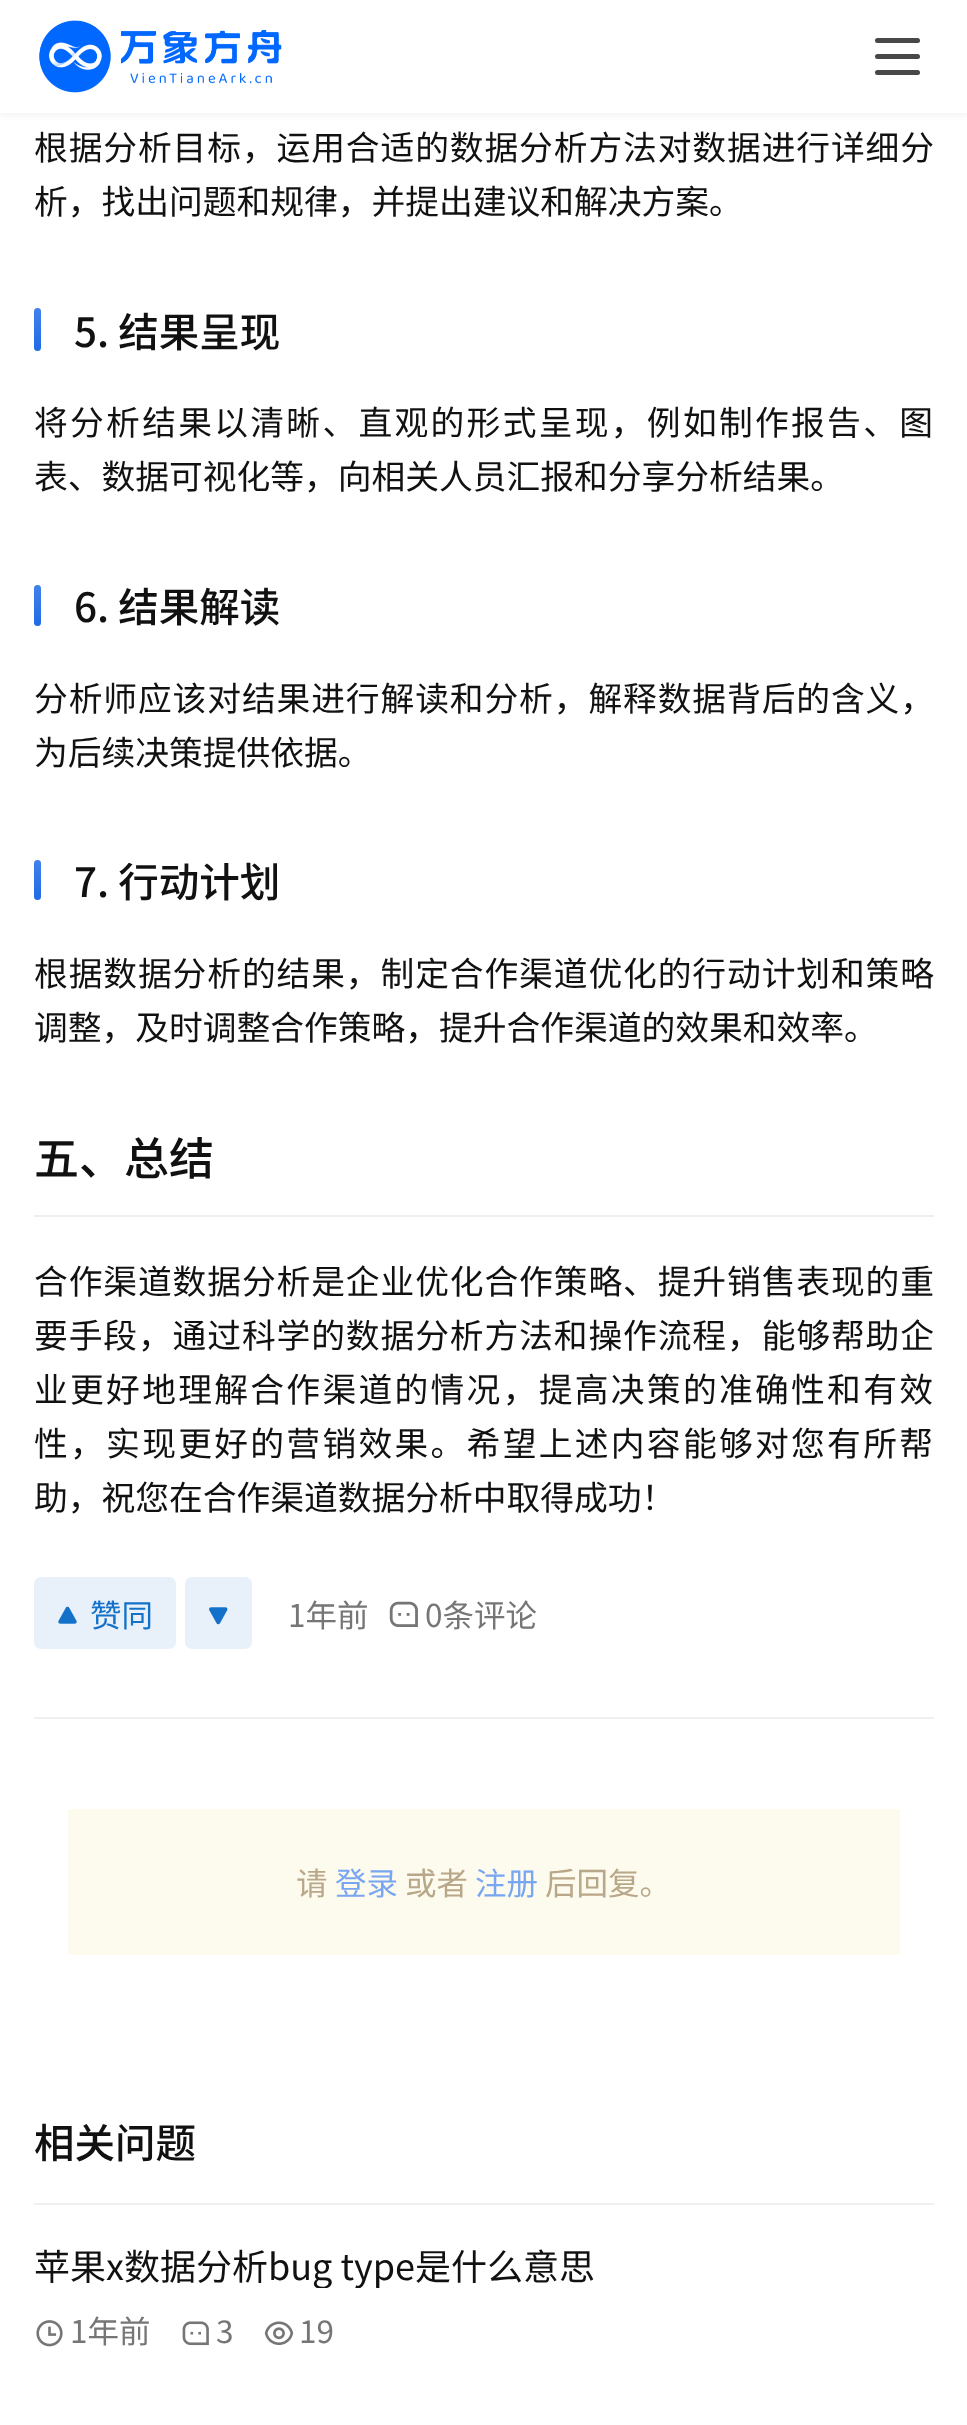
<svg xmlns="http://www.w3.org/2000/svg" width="967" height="2425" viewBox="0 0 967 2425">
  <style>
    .t1 { font: 33.75px Noto Sans CJK SC; letter-spacing: 0.9px; fill: #111; }
    .t2 { font: 33.75px Noto Sans CJK SC; fill: #111; }
    .t3 { font: 500 40.5px Noto Sans CJK SC; fill: #111; }
    .t4 { font: 33.75px Noto Sans CJK SC; letter-spacing: 2.3px; fill: #111; }
    .t5 { font: 500 45px Noto Sans CJK SC; fill: #111; }
    .t6 { font: 31.5px Noto Sans CJK SC; fill: #1471ca; }
    .t7 { font: 31.5px Noto Sans CJK SC; fill: #767676; }
    .t8 { font: 31.5px Noto Sans CJK SC; fill: #b9a789; }
    .t9 { font: 31.5px Noto Sans CJK SC; fill: #79a6f1; }
    .t10 { font: 36px Noto Sans CJK SC; fill: #111; }
  </style>
  <defs>
    <linearGradient id="g1" gradientUnits="userSpaceOnUse" x1="37" y1="308" x2="37" y2="351"><stop offset="0" stop-color="#fff" stop-opacity="0.15"/><stop offset="1" stop-color="#fff" stop-opacity="0"/></linearGradient>
    <linearGradient id="g2" gradientUnits="userSpaceOnUse" x1="37" y1="585" x2="37" y2="626"><stop offset="0" stop-color="#fff" stop-opacity="0.15"/><stop offset="1" stop-color="#fff" stop-opacity="0"/></linearGradient>
    <linearGradient id="g3" gradientUnits="userSpaceOnUse" x1="37" y1="860" x2="37" y2="900"><stop offset="0" stop-color="#fff" stop-opacity="0.15"/><stop offset="1" stop-color="#fff" stop-opacity="0"/></linearGradient>
    <clipPath id="clip1"><rect x="34" y="2239" width="900" height="49"/></clipPath>
  </defs>
  <rect width="100%" height="100%" fill="#fff"/>
  <rect x="-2" y="-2" width="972" height="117" fill="#1a1a1a0f" filter="blur(3.5px)"/>
  <rect x="0" y="0" width="967" height="113" fill="#fff"/>
  <image x="39" y="20" width="243" height="73" href="images/1.png"/>
  <rect x="875" y="38" width="45" height="5" rx="2.5" fill="#484848"/>
  <rect x="875" y="54" width="45" height="5" rx="2.5" fill="#484848"/>
  <rect x="875" y="70" width="45" height="5" rx="2.5" fill="#484848"/>
  <rect x="34" y="1717" width="900" height="2" fill="#efefef"/>
  <text x="34" y="160" class="t1">根据分析目标，运用合适的数据分析方法对数据进行详细分</text>
  <text x="34" y="214" class="t2">析，找出问题和规律，并提出建议和解决方案。</text>
  <rect x="34" y="308" width="7" height="43" rx="3.5" fill="#206be7"/>
  <rect x="34" y="308" width="7" height="43" rx="3.5" fill="url(#g1)"/>
  <text x="74" y="347" class="t3">5. 结果呈现</text>
  <text x="34" y="435" class="t4">将分析结果以清晰、直观的形式呈现，例如制作报告、图</text>
  <text x="34" y="489" class="t2">表、数据可视化等，向相关人员汇报和分享分析结果。</text>
  <rect x="34" y="585" width="7" height="41" rx="3.5" fill="#206be7"/>
  <rect x="34" y="585" width="7" height="41" rx="3.5" fill="url(#g2)"/>
  <text x="74" y="622" class="t3">6. 结果解读</text>
  <text x="34" y="711" class="t1">分析师应该对结果进行解读和分析，解释数据背后的含义，</text>
  <text x="34" y="765" class="t2">为后续决策提供依据。</text>
  <rect x="34" y="860" width="7" height="40" rx="3.5" fill="#206be7"/>
  <rect x="34" y="860" width="7" height="40" rx="3.5" fill="url(#g3)"/>
  <text x="74" y="897" class="t3">7. 行动计划</text>
  <text x="34" y="986" class="t1">根据数据分析的结果，制定合作渠道优化的行动计划和策略</text>
  <text x="34" y="1040" class="t2">调整，及时调整合作策略，提升合作渠道的效果和效率。</text>
  <rect x="34" y="1215" width="900" height="2" fill="#efefef"/>
  <text x="34" y="1175" class="t5">五、总结</text>
  <text x="34" y="1294" class="t1">合作渠道数据分析是企业优化合作策略、提升销售表现的重</text>
  <text x="34" y="1348" class="t1">要手段，通过科学的数据分析方法和操作流程，能够帮助企</text>
  <text x="34" y="1402" class="t4">业更好地理解合作渠道的情况，提高决策的准确性和有效</text>
  <text x="34" y="1456" class="t4">性，实现更好的营销效果。希望上述内容能够对您有所帮</text>
  <text x="34" y="1510" class="t2">助，祝您在合作渠道数据分析中取得成功！</text>
  <rect x="34" y="1577" width="142" height="72" rx="7" fill="#e8f1fa"/>
  <image x="58" y="1606" width="19" height="18" href="images/2.png"/>
  <text x="90" y="1627" class="t6">赞同</text>
  <rect x="185" y="1577" width="67" height="72" rx="7" fill="#e8f1fa"/>
  <image x="209" y="1607" width="19" height="18" href="images/3.png"/>
  <text x="288" y="1627" class="t7">1年前</text>
  <image x="389" y="1601" width="29" height="26" href="images/4.png"/>
  <text x="425" y="1627" class="t7">0条评论</text>
  <rect x="68" y="1809" width="832" height="146" fill="#fdfbee"/>
  <text x="296" y="1895" class="t8">请</text>
  <text x="335" y="1895" class="t9">登录</text>
  <text x="405" y="1895" class="t8">或者</text>
  <text x="475" y="1895" class="t9">注册</text>
  <text x="545" y="1895" class="t8">后回复。</text>
  <rect x="34" y="2203" width="900" height="2" fill="#efefef"/>
  <text x="34" y="2158" class="t3">相关问题</text>
  <g clip-path="url(#clip1)">
    <text x="34" y="2280" class="t10">苹果x数据分析bug type是什么意思</text>
  </g>
  <image x="36" y="2320" width="27" height="27" href="images/5.png"/>
  <text x="70" y="2343" class="t7">1年前</text>
  <image x="182" y="2321" width="27" height="25" href="images/6.png"/>
  <text x="216" y="2343" class="t7">3</text>
  <image x="264" y="2321" width="30" height="24" href="images/7.png"/>
  <text x="299" y="2343" class="t7">19</text>
</svg>
